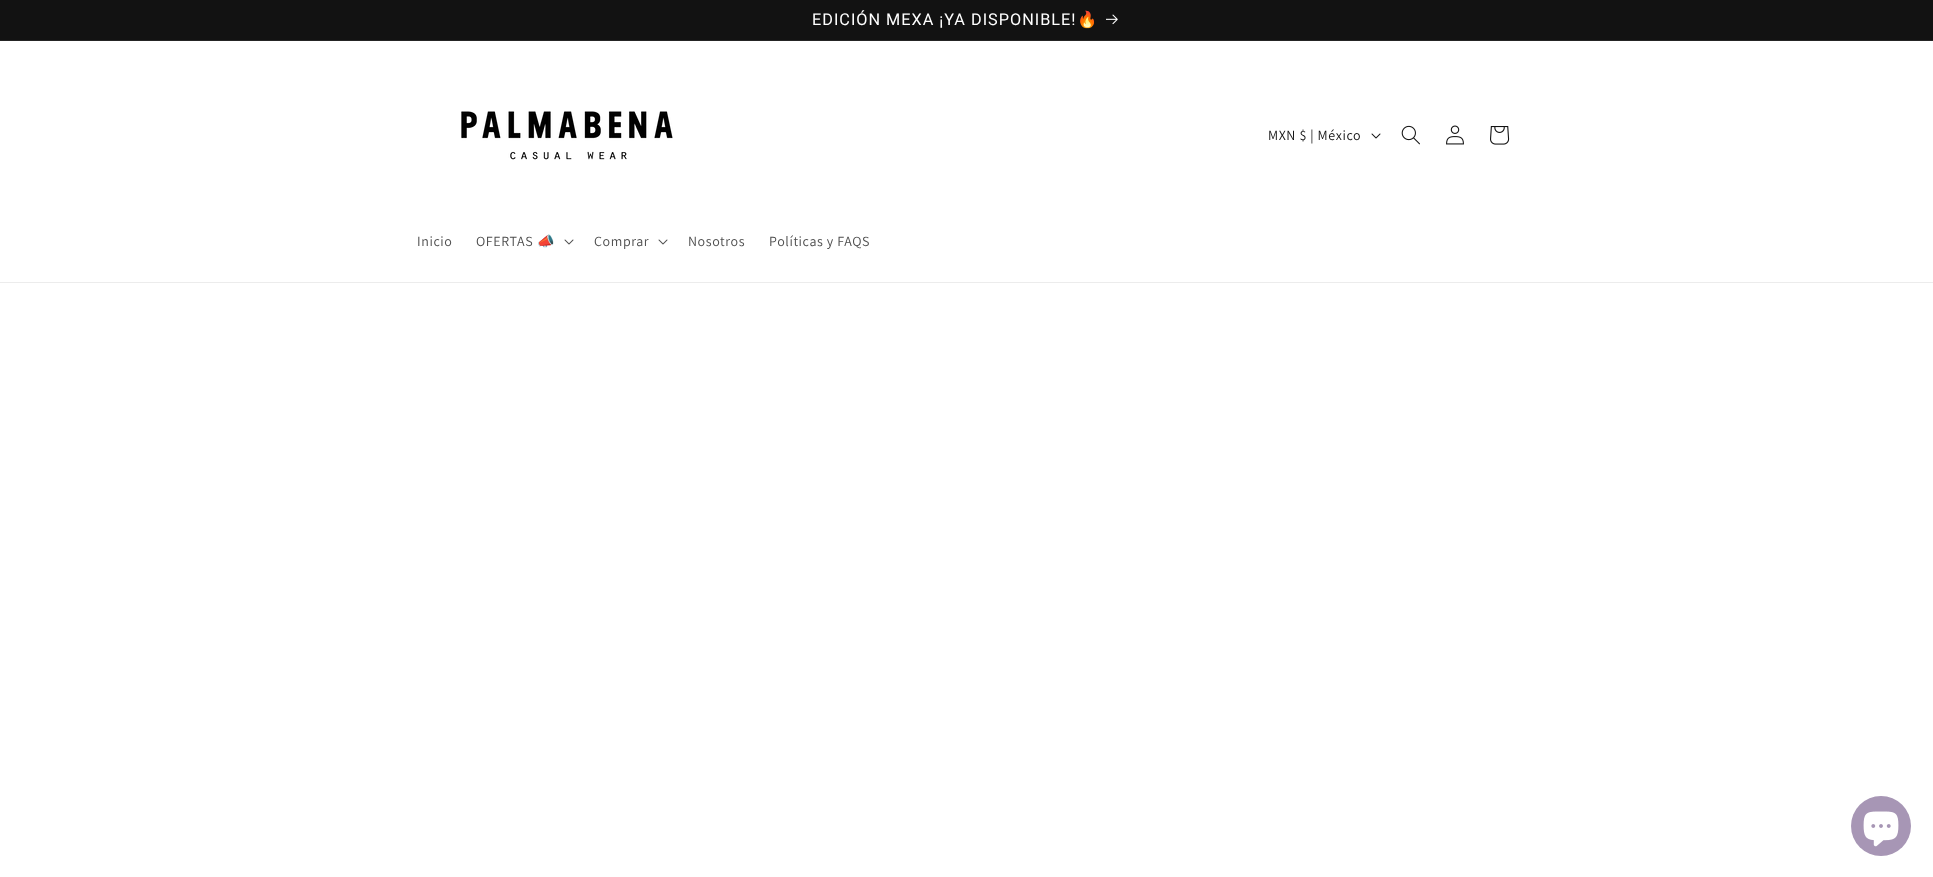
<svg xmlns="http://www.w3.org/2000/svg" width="1933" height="877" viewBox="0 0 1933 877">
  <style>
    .t1 { font: 16.25px Roboto; letter-spacing: 1px; fill: #fff; }
    .t2 { font: 16.25px Noto Color Emoji; letter-spacing: 1px; fill: #fff; }
    .t3 { font: 14px Assistant; letter-spacing: 0.6px; fill: #121212; }
    .t4 { font: 14px Assistant; letter-spacing: 0.6px; fill: #4d4d4d; }
    .t5 { font: 14px Noto Color Emoji; letter-spacing: 0.6px; fill: #4d4d4d; }
  </style>
  <rect width="100%" height="100%" fill="#fff"/>
  <rect x="0" y="0" width="1933" height="40" fill="#121212"/>
  <rect x="0" y="40" width="1933" height="1" fill="#252525"/>
  <text x="812" y="25" class="t1">EDICIÓN MEXA ¡YA DISPONIBLE!</text>
  <text x="1077" y="25" class="t2">🔥</text>
  <image x="1106" y="14" width="12" height="11" href="images/1.png"/>
  <rect x="0" y="282" width="1933" height="1" fill="#ececec"/>
  <image x="461" y="111" width="212" height="49" href="images/2.png"/>
  <text x="1268" y="140" class="t3">MXN $ | México</text>
  <image x="1371" y="133" width="10" height="6" href="images/3.png"/>
  <image x="1401" y="125" width="19" height="20" href="images/4.png"/>
  <image x="1446" y="125" width="18" height="20" href="images/5.png"/>
  <image x="1490" y="126" width="20" height="19" href="images/6.png"/>
  <text x="417" y="246" class="t4">Inicio</text>
  <text x="476" y="246" class="t4">OFERTAS</text>
  <text x="537" y="246" class="t5">📣</text>
  <image x="564" y="239" width="10" height="6" href="images/7.png"/>
  <text x="594" y="246" class="t4">Comprar</text>
  <image x="658" y="239" width="10" height="6" href="images/7.png"/>
  <text x="688" y="246" class="t4">Nosotros</text>
  <text x="769" y="246" class="t4">Políticas y FAQS</text>
  <circle cx="1881" cy="826" r="30" fill="#a796b5"/>
  <image x="1863" y="811" width="36" height="36" href="images/8.png"/>
</svg>
